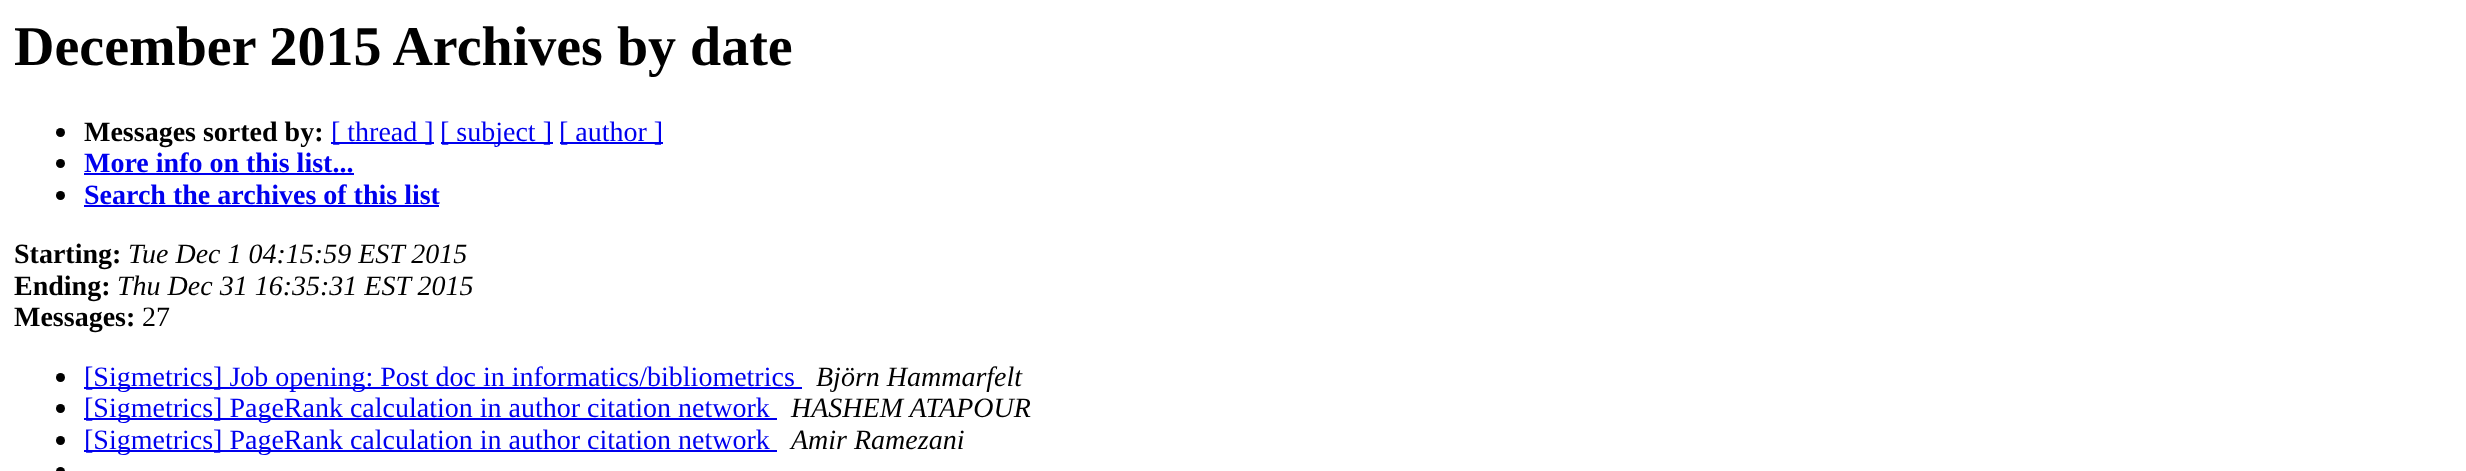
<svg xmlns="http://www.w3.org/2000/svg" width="2466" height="471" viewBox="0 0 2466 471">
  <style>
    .t1 { font: bold 56px Liberation Serif; fill: #000; }
    .t2 { font: bold 28px Liberation Serif; fill: #000; }
    .t3 { font: 28px Liberation Serif; fill: #00e; }
    .t4 { font: bold 28px Liberation Serif; fill: #00e; }
    .t5 { font: italic 28px Liberation Serif; fill: #000; }
    .t6 { font: 28px Liberation Serif; fill: #000; }
  </style>
  <rect width="100%" height="100%" fill="#fff"/>
  <text x="14" y="65" class="t1">December 2015 Archives by date</text>
  <circle cx="60.5" cy="132.5" r="4.5" fill="#000"/>
  <text x="84" y="141" class="t2">Messages sorted by:</text>
  <rect x="331" y="142" width="103" height="2" fill="#00e"/>
  <text x="331" y="141" class="t3">[ thread ]</text>
  <rect x="441" y="142" width="112" height="2" fill="#00e"/>
  <text x="440" y="141" class="t3">[ subject ]</text>
  <rect x="560" y="142" width="103" height="2" fill="#00e"/>
  <text x="559" y="141" class="t3">[ author ]</text>
  <circle cx="60.5" cy="163.5" r="4.5" fill="#000"/>
  <text x="84" y="172" class="t4">More info on this list...</text>
  <rect x="84" y="173" width="270" height="2" fill="#00e"/>
  <circle cx="60.5" cy="195.5" r="4.5" fill="#000"/>
  <text x="84" y="204" class="t4">Search the archives of this list</text>
  <rect x="84" y="205" width="355" height="2" fill="#00e"/>
  <text x="14" y="263" class="t2">Starting:</text>
  <text x="128" y="263" class="t5">Tue Dec 1 04:15:59 EST 2015</text>
  <text x="14" y="295" class="t2">Ending:</text>
  <text x="117" y="295" class="t5">Thu Dec 31 16:35:31 EST 2015</text>
  <text x="14" y="326" class="t2">Messages:</text>
  <text x="142" y="326" class="t6">27</text>
  <circle cx="60.5" cy="377.5" r="4.5" fill="#000"/>
  <rect x="84" y="387" width="718" height="2" fill="#00e"/>
  <text x="84" y="386" class="t3">[Sigmetrics] Job opening: Post doc in informatics/bibliometrics</text>
  <text x="816" y="386" class="t5">Björn Hammarfelt</text>
  <circle cx="60.5" cy="408.5" r="4.5" fill="#000"/>
  <rect x="84" y="418" width="693" height="2" fill="#00e"/>
  <text x="84" y="417" class="t3">[Sigmetrics] PageRank calculation in author citation network</text>
  <text x="791" y="417" class="t5">HASHEM ATAPOUR</text>
  <circle cx="60.5" cy="440.5" r="4.5" fill="#000"/>
  <rect x="84" y="450" width="693" height="2" fill="#00e"/>
  <text x="84" y="449" class="t3">[Sigmetrics] PageRank calculation in author citation network</text>
  <text x="791" y="449" class="t5">Amir Ramezani</text>
  <circle cx="60.5" cy="471.5" r="4.5" fill="#000"/>
</svg>
